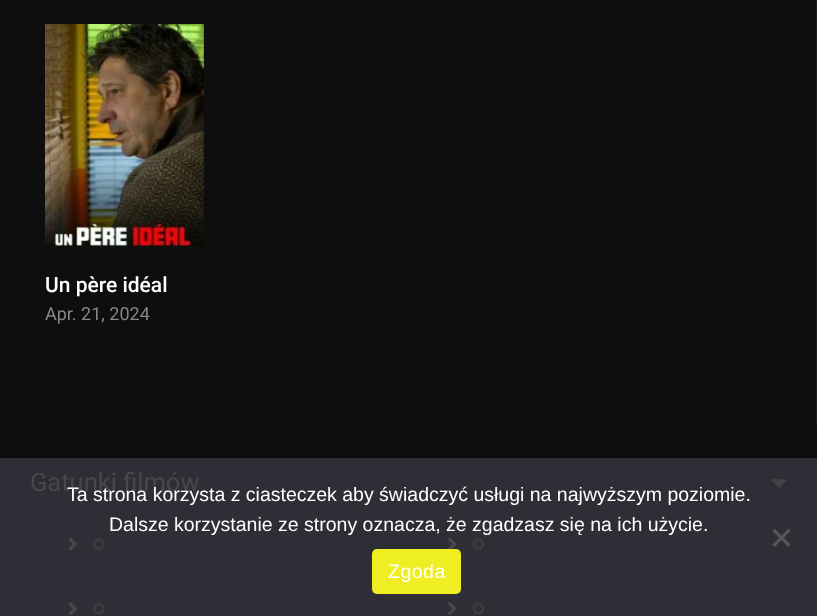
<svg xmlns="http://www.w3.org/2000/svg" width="817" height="616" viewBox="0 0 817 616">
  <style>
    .t1 { font: 500 21px Roboto; fill: #fff; }
    .t2 { font: 18px Roboto; fill: #878787; }
    .t3 { font: 25.5px Roboto; fill: #47474e; }
    .t4 { font: 19.5px Liberation Sans; fill: #fff; }
    .t5 { font: 19.5px Liberation Sans; letter-spacing: 0.5px; fill: #fff; }
  </style>
  <rect width="100%" height="100%" fill="#0f0e0e"/>
  <rect x="0" y="458" width="817" height="158" fill="#2f2e36"/>
  <rect x="816" y="0" width="1" height="425" fill="#222121"/>
  <image x="45" y="24" width="159" height="222" href="images/1.png"/>
  <text x="45" y="292" class="t1">Un père idéal</text>
  <text x="45" y="320" class="t2">Apr. 21, 2024</text>
  <text x="30" y="491" class="t3">Gatunki filmów</text>
  <image x="771" y="479" width="16" height="9" href="images/2.png"/>
  <image x="68" y="537" width="9" height="14" href="images/3.png"/>
  <image x="93" y="538" width="12" height="12" href="images/4.png"/>
  <image x="448" y="537" width="9" height="12" href="images/5.png"/>
  <image x="472" y="538" width="13" height="12" href="images/6.png"/>
  <image x="68" y="602" width="9" height="14" href="images/7.png"/>
  <image x="93" y="602" width="12" height="13" href="images/8.png"/>
  <image x="448" y="602" width="9" height="14" href="images/9.png"/>
  <image x="472" y="602" width="13" height="13" href="images/10.png"/>
  <text x="67" y="501" class="t4">Ta strona korzysta z ciasteczek aby świadczyć usługi na najwyższym poziomie.</text>
  <text x="109" y="531" class="t4">Dalsze korzystanie ze strony oznacza, że zgadzasz się na ich użycie.</text>
  <path d="M788.5 528.5L790.5 531L774.5 547L772.5 544.5Z" fill="#57575b"/>
  <path d="M772.5 531L774.5 528.5L790.5 544.5L788.5 547Z" fill="#57575b"/>
  <rect x="372" y="549" width="89" height="45" rx="5" fill="#ee2"/>
  <text x="388" y="578" class="t5">Zgoda</text>
</svg>
